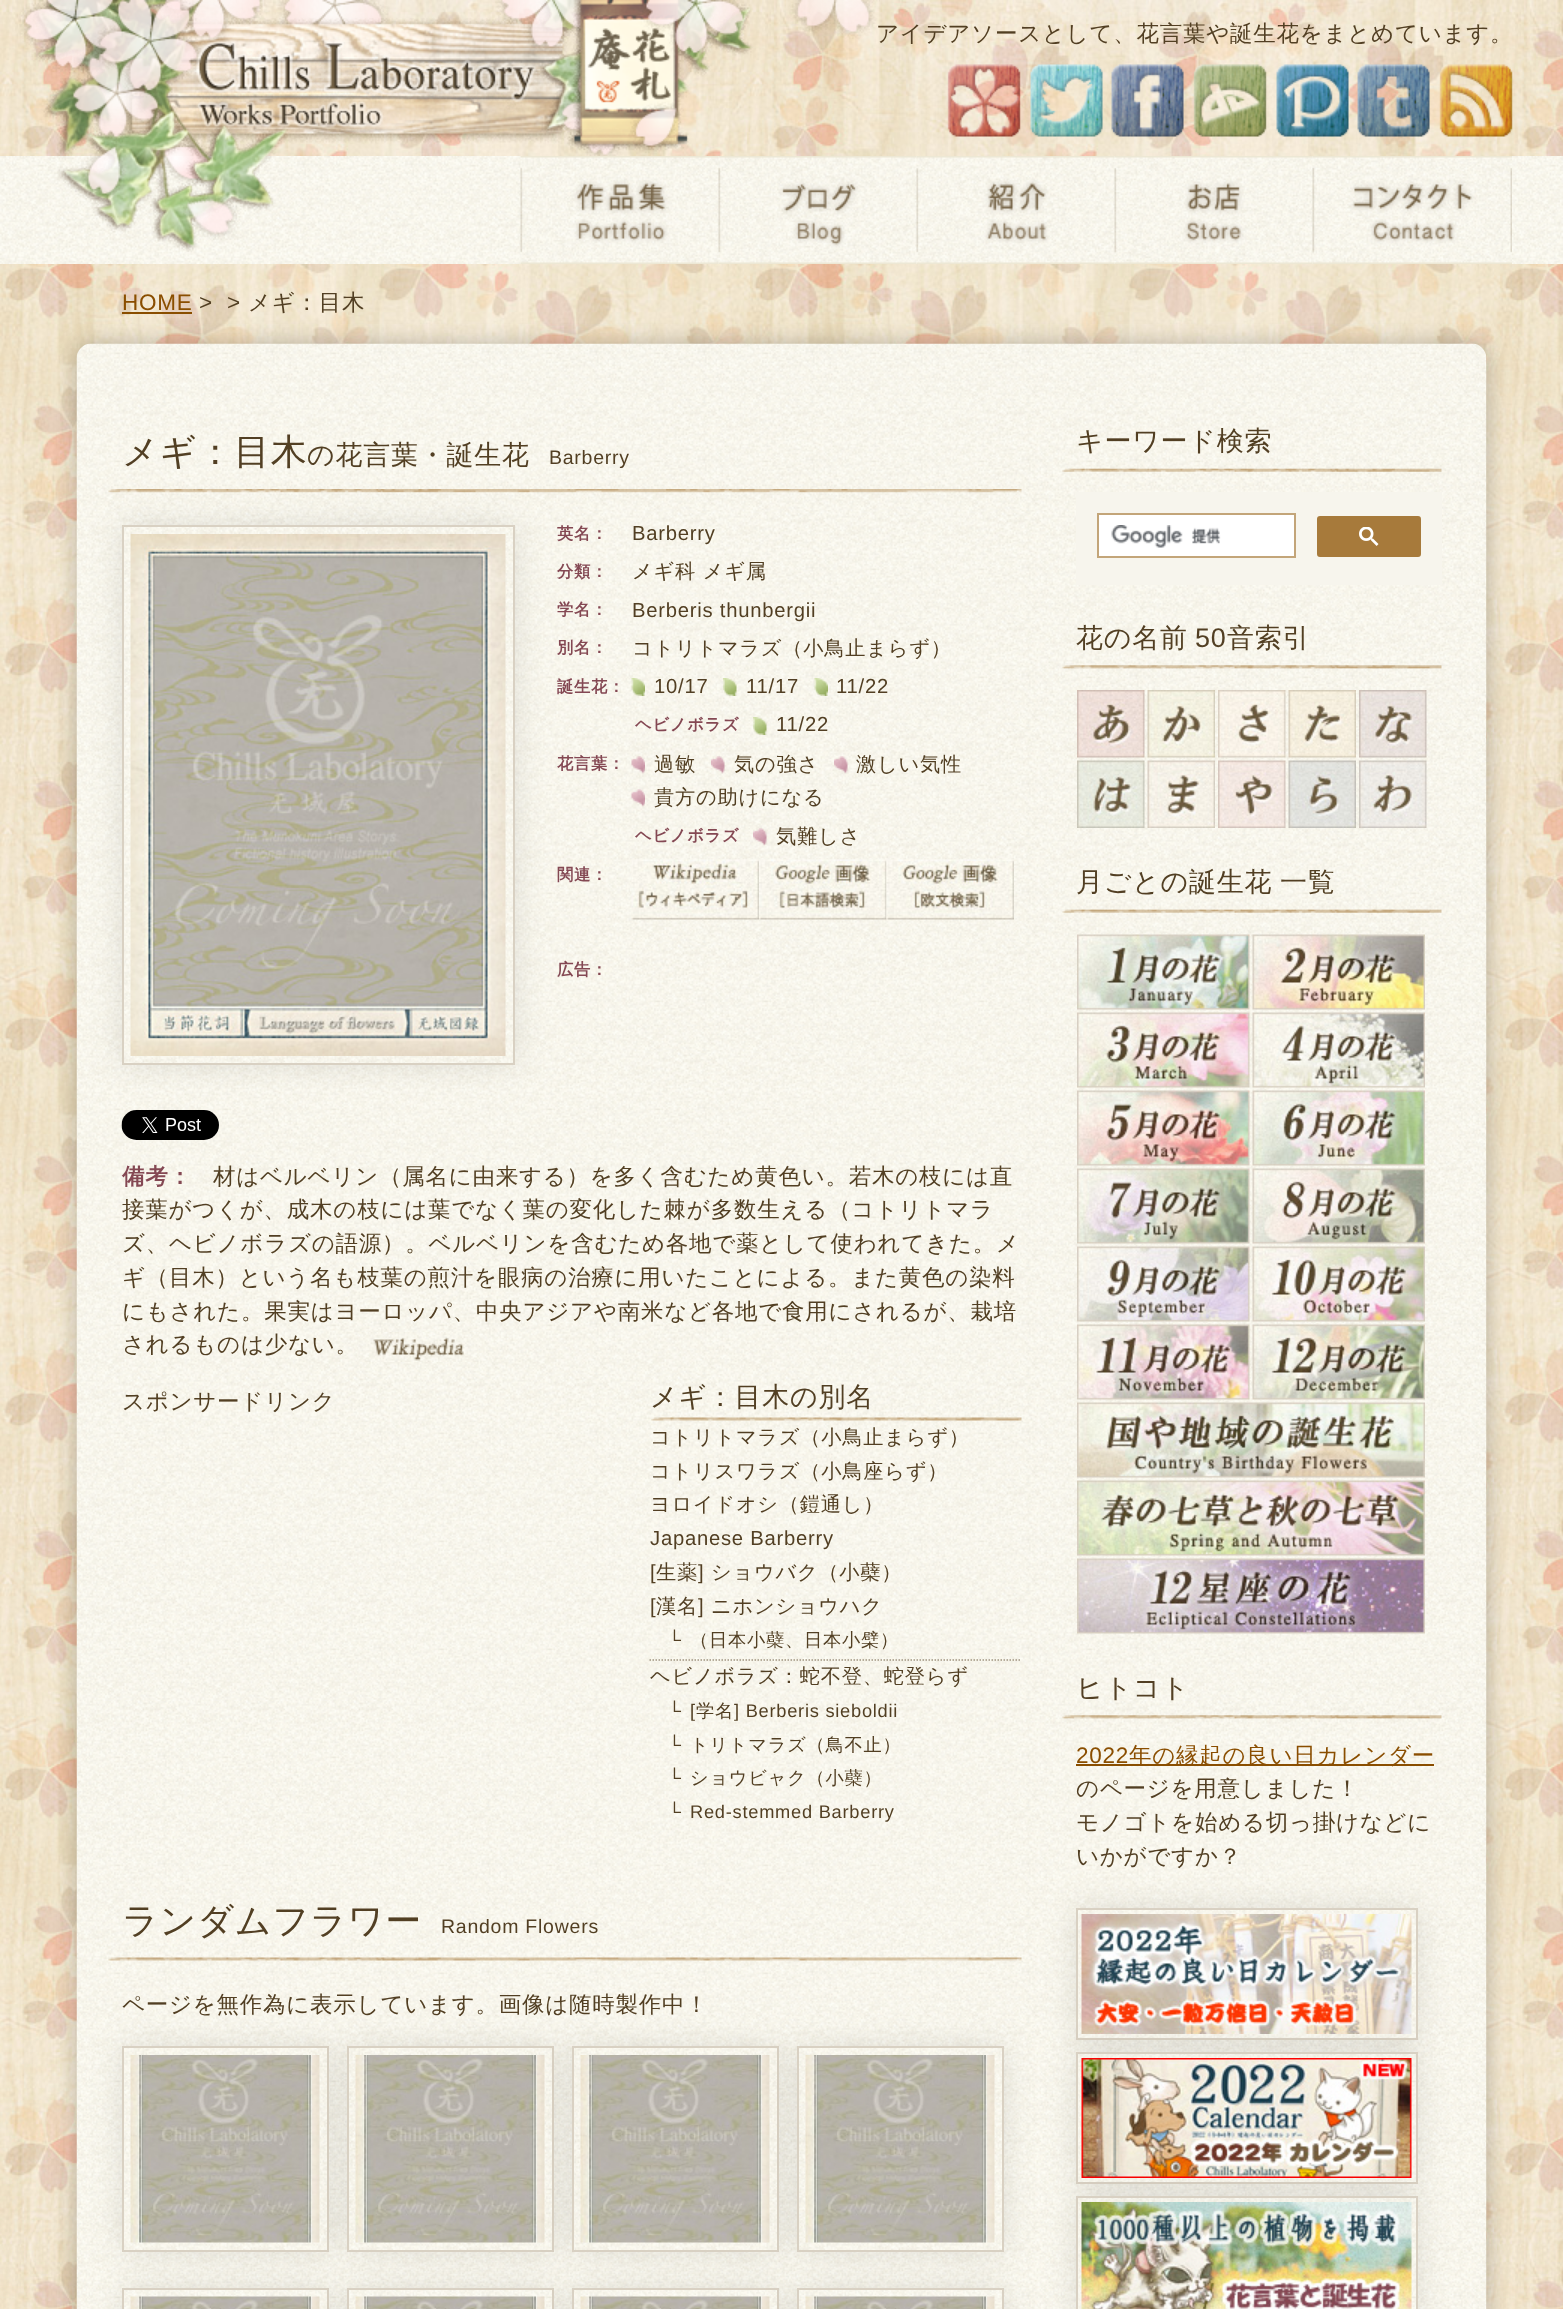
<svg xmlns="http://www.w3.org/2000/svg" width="1563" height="2309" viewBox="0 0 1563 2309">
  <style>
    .t1 { font: 500 22.5px WenQuanYi Zen Hei; letter-spacing: 0.75px; fill: #523f23; }
    .t2 { font: 22.5px Liberation Sans; letter-spacing: 0.75px; fill: #8a4e00; }
    .t3 { font: 22.5px Liberation Sans; letter-spacing: 0.75px; fill: #523f23; }
    .t4 { font: 500 36px WenQuanYi Zen Hei; letter-spacing: 0.75px; fill: #523f23; }
    .t5 { font: 500 27px WenQuanYi Zen Hei; letter-spacing: 0.75px; fill: #523f23; }
    .t6 { font: 19.5px Liberation Sans; letter-spacing: 0.75px; fill: #523f23; }
    .t7 { font: bold 16.25px WenQuanYi Zen Hei; letter-spacing: 0.75px; fill: #844853; }
    .t8 { font: 20.25px Liberation Sans; letter-spacing: 0.75px; fill: #523f23; }
    .t9 { font: 500 20.25px WenQuanYi Zen Hei; letter-spacing: 0.75px; fill: #523f23; }
    .t10 { font: bold 22.5px WenQuanYi Zen Hei; letter-spacing: 0.75px; fill: #844853; }
    .t11 { font: 18.25px Liberation Sans; letter-spacing: 0.75px; fill: #523f23; }
    .t12 { font: 500 18.25px WenQuanYi Zen Hei; letter-spacing: 0.75px; fill: #523f23; }
    .t13 { font: 27px Liberation Sans; letter-spacing: 0.75px; fill: #523f23; }
    .t14 { font: 500 22.5px WenQuanYi Zen Hei; letter-spacing: 0.75px; fill: #8a4e00; }
  </style>
  <defs>
    <clipPath id="clip1"><path d="M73 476H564V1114H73ZM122 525H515V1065H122Z" clip-rule="evenodd"/></clipPath>
    <clipPath id="clip2"><path d="M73 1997H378V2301H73ZM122 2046H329V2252H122Z" clip-rule="evenodd"/></clipPath>
    <clipPath id="clip3"><path d="M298 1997H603V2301H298ZM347 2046H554V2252H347Z" clip-rule="evenodd"/></clipPath>
    <clipPath id="clip4"><path d="M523 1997H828V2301H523ZM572 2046H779V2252H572Z" clip-rule="evenodd"/></clipPath>
    <clipPath id="clip5"><path d="M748 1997H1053V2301H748ZM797 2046H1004V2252H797Z" clip-rule="evenodd"/></clipPath>
    <clipPath id="clip6"><path d="M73 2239H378V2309H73ZM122 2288H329V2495H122Z" clip-rule="evenodd"/></clipPath>
    <clipPath id="clip7"><path d="M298 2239H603V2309H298ZM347 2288H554V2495H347Z" clip-rule="evenodd"/></clipPath>
    <clipPath id="clip8"><path d="M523 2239H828V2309H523ZM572 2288H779V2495H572Z" clip-rule="evenodd"/></clipPath>
    <clipPath id="clip9"><path d="M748 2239H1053V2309H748ZM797 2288H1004V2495H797Z" clip-rule="evenodd"/></clipPath>
    <clipPath id="clip10"><path d="M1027 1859H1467V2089H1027ZM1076 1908H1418V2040H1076Z" clip-rule="evenodd"/></clipPath>
    <clipPath id="clip11"><path d="M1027 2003H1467V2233H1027ZM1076 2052H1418V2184H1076Z" clip-rule="evenodd"/></clipPath>
    <clipPath id="clip12"><path d="M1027 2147H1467V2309H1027ZM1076 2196H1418V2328H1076Z" clip-rule="evenodd"/></clipPath>
  </defs>
  <rect width="100%" height="100%" fill="#fff"/>
  <image x="0" y="0" width="1563" height="2309" href="images/1.png"/>
  <image x="19" y="0" width="861" height="252" href="images/2.png"/>
  <text x="876" y="41" class="t1">アイデアソースとして、花言葉や誕生花をまとめています。</text>
  <image x="947" y="64" width="74" height="73" href="images/3.png"/>
  <image x="1030" y="64" width="73" height="73" href="images/4.png"/>
  <image x="1111" y="64" width="73" height="73" href="images/5.png"/>
  <image x="1193" y="64" width="74" height="73" href="images/6.png"/>
  <image x="1276" y="64" width="73" height="73" href="images/7.png"/>
  <image x="1357" y="64" width="73" height="73" href="images/8.png"/>
  <image x="1439" y="64" width="74" height="73" href="images/9.png"/>
  <image x="193" y="39" width="344" height="94" href="images/10.png"/>
  <image x="520" y="156" width="199" height="108" href="images/11.png"/>
  <image x="718" y="156" width="199" height="108" href="images/12.png"/>
  <image x="916" y="156" width="199" height="108" href="images/13.png"/>
  <image x="1114" y="156" width="199" height="108" href="images/14.png"/>
  <image x="1312" y="156" width="200" height="108" href="images/15.png"/>
  <text x="122" y="310" class="t2">HOME</text>
  <rect x="122" y="312" width="70" height="2" fill="#8a4e00"/>
  <text x="199" y="310" class="t3">&gt;</text>
  <text x="227" y="310" class="t3">&gt;</text>
  <text x="248" y="310" class="t1">メギ：目木</text>
  <rect x="77" y="344" width="1410" height="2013" rx="15" fill="#00000040" filter="blur(11px)"/>
  <image x="76" y="343" width="1411" height="1966" href="images/16.png"/>
  <image x="108" y="489" width="914" height="4" href="images/17.png"/>
  <text x="122" y="464" class="t4">メギ：目木</text>
  <text x="307" y="464" class="t5">の花言葉・誕生花</text>
  <text x="549" y="464" class="t6">Barberry</text>
  <g clip-path="url(#clip1)">
    <rect x="122" y="525" width="393" height="540" fill="#0000001a" filter="blur(16px)"/>
  </g>
  <rect x="123" y="526" width="391" height="538" fill="none" stroke="#d9d1c3" stroke-width="2"/>
  <image x="130" y="534" width="376" height="522" href="images/18.png"/>
  <text x="557" y="539" class="t7">英名：</text>
  <text x="632" y="540" class="t8">Barberry</text>
  <text x="557" y="577" class="t7">分類：</text>
  <text x="632" y="578" class="t9">メギ科 メギ属</text>
  <text x="557" y="615" class="t7">学名：</text>
  <text x="632" y="617" class="t8">Berberis thunbergii</text>
  <text x="557" y="653" class="t7">別名：</text>
  <text x="632" y="655" class="t9">コトリトマラズ（小鳥止まらず）</text>
  <text x="557" y="692" class="t7">誕生花：</text>
  <image x="631" y="678" width="14" height="18" href="images/19.png"/>
  <text x="654" y="693" class="t8">10/17</text>
  <image x="723" y="678" width="14" height="18" href="images/20.png"/>
  <text x="746" y="693" class="t8">11/17</text>
  <image x="814" y="678" width="14" height="18" href="images/21.png"/>
  <text x="836" y="693" class="t8">11/22</text>
  <text x="635" y="730" class="t7">ヘビノボラズ</text>
  <image x="753" y="717" width="14" height="18" href="images/22.png"/>
  <text x="776" y="731" class="t8">11/22</text>
  <text x="557" y="769" class="t7">花言葉：</text>
  <image x="631" y="756" width="14" height="18" href="images/23.png"/>
  <text x="654" y="771" class="t9">過敏</text>
  <image x="711" y="756" width="14" height="18" href="images/24.png"/>
  <text x="734" y="771" class="t9">気の強さ</text>
  <image x="834" y="756" width="14" height="18" href="images/25.png"/>
  <text x="856" y="771" class="t9">激しい気性</text>
  <image x="631" y="789" width="14" height="18" href="images/26.png"/>
  <text x="654" y="804" class="t9">貴方の助けになる</text>
  <text x="635" y="841" class="t7">ヘビノボラズ</text>
  <image x="753" y="828" width="14" height="18" href="images/27.png"/>
  <text x="776" y="843" class="t9">気難しさ</text>
  <text x="557" y="880" class="t7">関連：</text>
  <image x="631" y="859" width="128" height="61" href="images/28.png"/>
  <image x="759" y="859" width="128" height="61" href="images/29.png"/>
  <image x="886" y="859" width="128" height="61" href="images/30.png"/>
  <text x="557" y="975" class="t7">広告：</text>
  <image x="121" y="1110" width="98" height="30" href="images/31.png"/>
  <text x="122" y="1184" class="t10">備考：</text>
  <text x="213" y="1184" class="t1">材はベルベリン（属名に由来する）を多く含むため黄色い。若木の枝には直</text>
  <text x="122" y="1217" class="t1">接葉がつくが、成木の枝には葉でなく葉の変化した棘が多数生える（コトリトマラ</text>
  <text x="122" y="1251" class="t1">ズ、ヘビノボラズの語源）。ベルベリンを含むため各地で薬として使われてきた。メ</text>
  <text x="122" y="1285" class="t1">ギ（目木）という名も枝葉の煎汁を眼病の治療に用いたことによる。また黄色の染料</text>
  <text x="122" y="1319" class="t1">にもされた。果実はヨーロッパ、中央アジアや南米など各地で食用にされるが、栽培</text>
  <text x="122" y="1352" class="t1">されるものは少ない。</text>
  <image x="358" y="1332" width="121" height="30" href="images/32.png"/>
  <text x="122" y="1409" class="t1">スポンサードリンク</text>
  <image x="651" y="1417" width="371" height="4" href="images/33.png"/>
  <text x="650" y="1406" class="t5">メギ：目木の別名</text>
  <text x="650" y="1444" class="t9">コトリトマラズ（小鳥止まらず）</text>
  <text x="650" y="1478" class="t9">コトリスワラズ（小鳥座らず）</text>
  <text x="650" y="1511" class="t9">ヨロイドオシ（鎧通し）</text>
  <text x="650" y="1545" class="t8">Japanese Barberry</text>
  <text x="650" y="1579" class="t8">[</text>
  <text x="656" y="1579" class="t9">生薬</text>
  <text x="698" y="1579" class="t8">]</text>
  <text x="711" y="1579" class="t9">ショウバク（小蘗）</text>
  <text x="650" y="1613" class="t8">[</text>
  <text x="656" y="1613" class="t9">漢名</text>
  <text x="698" y="1613" class="t8">]</text>
  <text x="711" y="1613" class="t9">ニホンショウハク</text>
  <text x="668" y="1646" class="t11">└</text>
  <text x="690" y="1646" class="t12">（日本小蘗、日本小檗）</text>
  <path d="M649.5 1660H1021.5" fill="none" stroke="#a09480" stroke-width="1.5" stroke-dasharray="1.5 1.5"/>
  <text x="650" y="1683" class="t9">ヘビノボラズ：蛇不登、蛇登らず</text>
  <text x="668" y="1717" class="t11">└</text>
  <text x="690" y="1717" class="t11">[</text>
  <text x="696" y="1717" class="t12">学名</text>
  <text x="734" y="1717" class="t11">] Berberis sieboldii</text>
  <text x="668" y="1751" class="t11">└</text>
  <text x="690" y="1751" class="t12">トリトマラズ（鳥不止）</text>
  <text x="668" y="1784" class="t11">└</text>
  <text x="690" y="1784" class="t12">ショウビャク（小蘗）</text>
  <text x="668" y="1818" class="t11">└</text>
  <text x="690" y="1818" class="t11">Red-stemmed Barberry</text>
  <image x="108" y="1957" width="914" height="4" href="images/34.png"/>
  <text x="122" y="1933" class="t4">ランダムフラワー</text>
  <text x="441" y="1933" class="t6">Random Flowers</text>
  <g clip-path="url(#clip2)">
    <rect x="122" y="2046" width="207" height="206" fill="#0000001a" filter="blur(16px)"/>
  </g>
  <rect x="123" y="2047" width="205" height="204" fill="none" stroke="#d9d1c3" stroke-width="2"/>
  <image x="130" y="2055" width="190" height="188" href="images/35.png"/>
  <g clip-path="url(#clip3)">
    <rect x="347" y="2046" width="207" height="206" fill="#0000001a" filter="blur(16px)"/>
  </g>
  <rect x="348" y="2047" width="205" height="204" fill="none" stroke="#d9d1c3" stroke-width="2"/>
  <image x="355" y="2055" width="190" height="188" href="images/36.png"/>
  <g clip-path="url(#clip4)">
    <rect x="572" y="2046" width="207" height="206" fill="#0000001a" filter="blur(16px)"/>
  </g>
  <text x="122" y="2012" class="t1">ページを無作為に表示しています。画像は随時製作中！</text>
  <rect x="573" y="2047" width="205" height="204" fill="none" stroke="#d9d1c3" stroke-width="2"/>
  <image x="580" y="2055" width="190" height="188" href="images/37.png"/>
  <g clip-path="url(#clip5)">
    <rect x="797" y="2046" width="207" height="206" fill="#0000001a" filter="blur(16px)"/>
  </g>
  <rect x="798" y="2047" width="205" height="204" fill="none" stroke="#d9d1c3" stroke-width="2"/>
  <image x="805" y="2055" width="190" height="188" href="images/38.png"/>
  <g clip-path="url(#clip6)">
    <rect x="122" y="2288" width="207" height="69" fill="#0000001a" filter="blur(16px)"/>
  </g>
  <rect x="123" y="2289" width="205" height="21" fill="none" stroke="#d9d1c3" stroke-width="2"/>
  <image x="130" y="2296" width="190" height="13" href="images/39.png"/>
  <g clip-path="url(#clip7)">
    <rect x="347" y="2288" width="207" height="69" fill="#0000001a" filter="blur(16px)"/>
  </g>
  <rect x="348" y="2289" width="205" height="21" fill="none" stroke="#d9d1c3" stroke-width="2"/>
  <image x="355" y="2296" width="190" height="13" href="images/40.png"/>
  <g clip-path="url(#clip8)">
    <rect x="572" y="2288" width="207" height="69" fill="#0000001a" filter="blur(16px)"/>
  </g>
  <rect x="573" y="2289" width="205" height="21" fill="none" stroke="#d9d1c3" stroke-width="2"/>
  <image x="580" y="2296" width="190" height="13" href="images/41.png"/>
  <g clip-path="url(#clip9)">
    <rect x="797" y="2288" width="207" height="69" fill="#0000001a" filter="blur(16px)"/>
  </g>
  <rect x="798" y="2289" width="205" height="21" fill="none" stroke="#d9d1c3" stroke-width="2"/>
  <image x="805" y="2296" width="190" height="13" href="images/42.png"/>
  <image x="1062" y="468" width="380" height="4" href="images/43.png"/>
  <text x="1076" y="450" class="t5">キーワード検索</text>
  <rect x="1076" y="492" width="366" height="93" fill="#f7f5ed"/>
  <rect x="1098" y="514" width="197" height="43" fill="#fff" stroke="#c3a579" stroke-width="2"/>
  <image x="1111" y="525" width="110" height="23" href="images/44.png"/>
  <rect x="1318" y="517" width="102" height="39" rx="2" fill="#a77a3b" stroke="#a77a3b" stroke-width="2"/>
  <image x="1359" y="527" width="20" height="19" href="images/45.png"/>
  <image x="1062" y="665" width="380" height="4" href="images/46.png"/>
  <text x="1076" y="647" class="t5">花の名前</text>
  <text x="1195" y="647" class="t13">50</text>
  <text x="1227" y="647" class="t5">音索引</text>
  <image x="1077" y="690" width="68" height="68" href="images/47.png"/>
  <image x="1147" y="690" width="68" height="68" href="images/48.png"/>
  <image x="1218" y="690" width="68" height="68" href="images/49.png"/>
  <image x="1288" y="690" width="68" height="68" href="images/50.png"/>
  <image x="1359" y="690" width="68" height="68" href="images/51.png"/>
  <image x="1077" y="760" width="68" height="68" href="images/52.png"/>
  <image x="1147" y="760" width="68" height="68" href="images/53.png"/>
  <image x="1218" y="760" width="68" height="68" href="images/54.png"/>
  <image x="1288" y="760" width="68" height="68" href="images/55.png"/>
  <image x="1359" y="760" width="68" height="68" href="images/56.png"/>
  <image x="1062" y="909" width="380" height="4" href="images/57.png"/>
  <text x="1076" y="891" word-spacing="-1" class="t5">月ごとの誕生花 一覧</text>
  <image x="1077" y="934" width="173" height="76" href="images/58.png"/>
  <image x="1252" y="934" width="173" height="76" href="images/59.png"/>
  <image x="1077" y="1012" width="173" height="76" href="images/60.png"/>
  <image x="1252" y="1012" width="173" height="76" href="images/61.png"/>
  <image x="1077" y="1090" width="173" height="76" href="images/62.png"/>
  <image x="1252" y="1090" width="173" height="76" href="images/63.png"/>
  <image x="1077" y="1168" width="173" height="76" href="images/64.png"/>
  <image x="1252" y="1168" width="173" height="76" href="images/65.png"/>
  <image x="1077" y="1246" width="173" height="76" href="images/66.png"/>
  <image x="1252" y="1246" width="173" height="76" href="images/67.png"/>
  <image x="1077" y="1324" width="173" height="76" href="images/68.png"/>
  <image x="1252" y="1324" width="173" height="76" href="images/69.png"/>
  <image x="1077" y="1402" width="348" height="76" href="images/70.png"/>
  <image x="1077" y="1480" width="348" height="76" href="images/71.png"/>
  <image x="1077" y="1558" width="348" height="76" href="images/72.png"/>
  <image x="1062" y="1715" width="380" height="4" href="images/73.png"/>
  <text x="1076" y="1697" class="t5">ヒトコト</text>
  <text x="1076" y="1763" class="t2">2022</text>
  <rect x="1076" y="1764" width="358" height="2" fill="#8a4e00"/>
  <text x="1129" y="1763" class="t14">年の縁起の良い日カレンダー</text>
  <text x="1076" y="1796" class="t1">のページを用意しました！</text>
  <text x="1076" y="1830" class="t1">モノゴトを始める切っ掛けなどに</text>
  <g clip-path="url(#clip10)">
    <rect x="1076" y="1908" width="342" height="132" fill="#0000001a" filter="blur(16px)"/>
  </g>
  <text x="1076" y="1864" class="t1">いかがですか？</text>
  <rect x="1077" y="1909" width="340" height="130" fill="none" stroke="#d9d1c3" stroke-width="2"/>
  <image x="1081" y="1914" width="331" height="120" href="images/74.png"/>
  <g clip-path="url(#clip11)">
    <rect x="1076" y="2052" width="342" height="132" fill="#0000001a" filter="blur(16px)"/>
  </g>
  <rect x="1077" y="2053" width="340" height="130" fill="none" stroke="#d9d1c3" stroke-width="2"/>
  <image x="1081" y="2058" width="331" height="120" href="images/75.png"/>
  <g clip-path="url(#clip12)">
    <rect x="1076" y="2196" width="342" height="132" fill="#0000001a" filter="blur(16px)"/>
  </g>
  <rect x="1077" y="2197" width="340" height="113" fill="none" stroke="#d9d1c3" stroke-width="2"/>
  <image x="1081" y="2202" width="331" height="107" href="images/76.png"/>
</svg>
